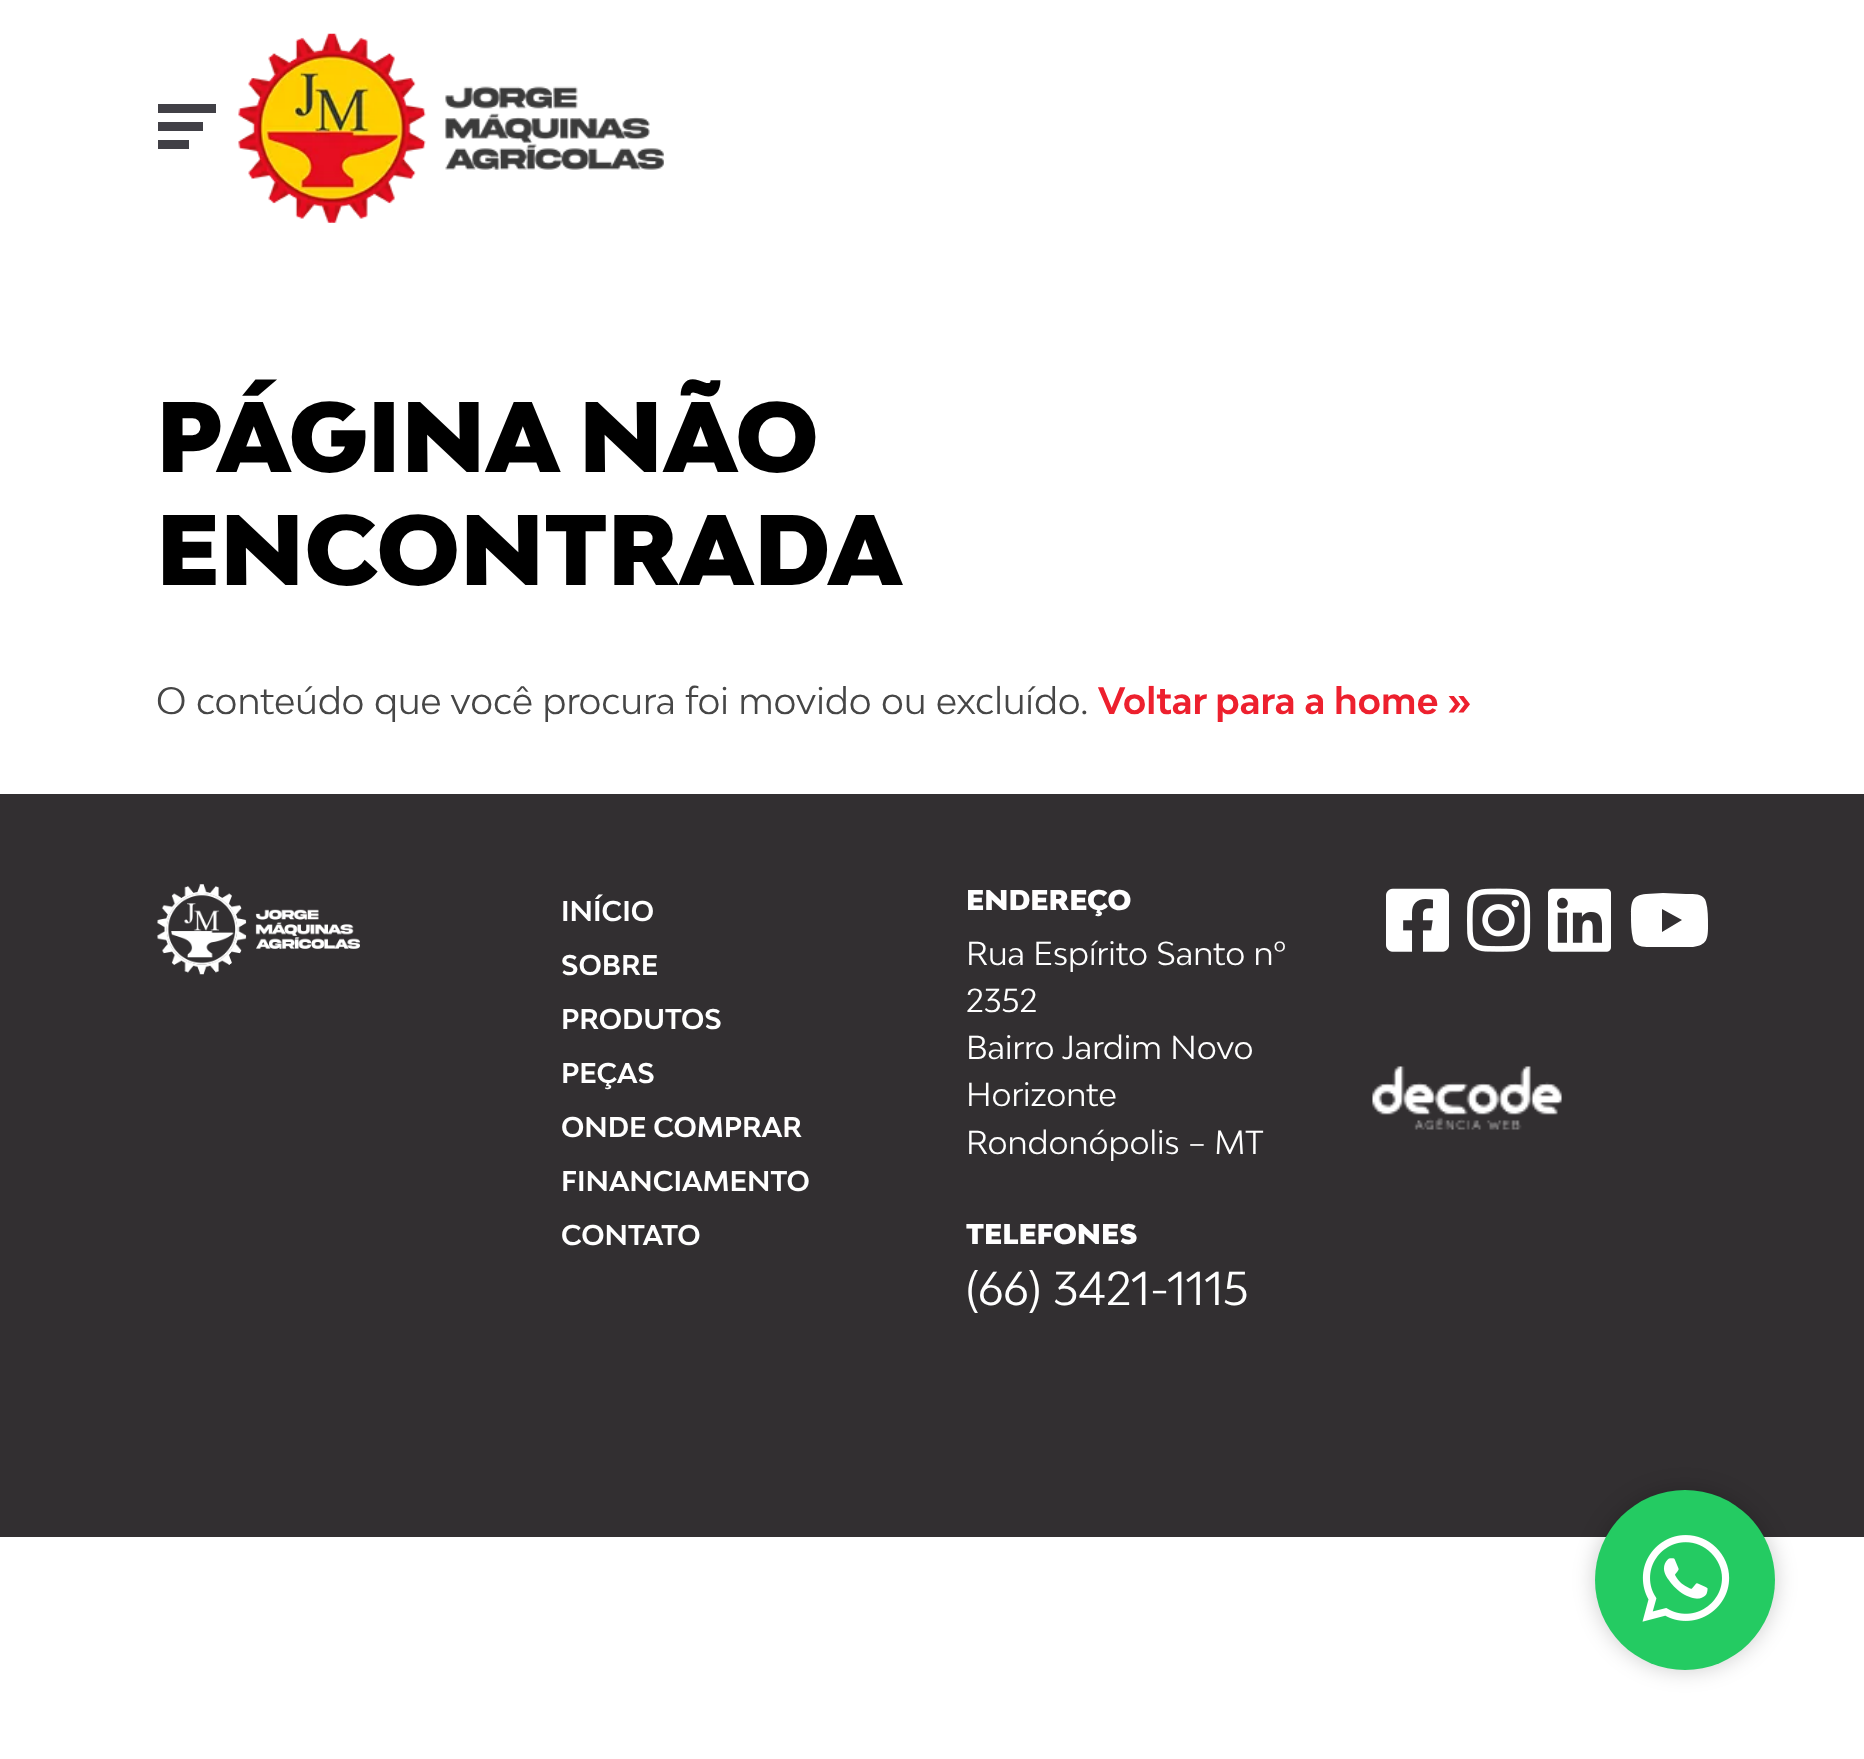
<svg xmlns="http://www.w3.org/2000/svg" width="1864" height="1759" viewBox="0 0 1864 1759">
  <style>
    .t1 { font: 900 94.5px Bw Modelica; fill: #000; }
    .t2 { font: 36px Bw Modelica; fill: #464646; }
    .t3 { font: bold 36px Bw Modelica; fill: #ed202e; }
    .t4 { font: bold 27px Bw Modelica; fill: #fff; }
    .t5 { font: 900 27px Bw Modelica; fill: #fff; }
    .t6 { font: 31.5px Bw Modelica; fill: #fff; }
    .t7 { font: 45px Bw Modelica; fill: #fff; }
  </style>
  <rect width="100%" height="100%" fill="#fff"/>
  <rect x="158" y="104" width="58" height="9" fill="#414046"/>
  <rect x="158" y="122" width="45" height="9" fill="#414046"/>
  <rect x="158" y="140" width="31" height="9" fill="#414046"/>
  <image x="238" y="33" width="426" height="190" href="images/1.png"/>
  <text x="156" y="472" class="t1">PÁGINA NÃO</text>
  <text x="156" y="585" class="t1">ENCONTRADA</text>
  <text x="156" y="714" class="t2">O conteúdo que você procura foi movido ou excluído.</text>
  <text x="1098" y="714" class="t3">Voltar para a home »</text>
  <rect x="0" y="794" width="1864" height="743" fill="#322f31"/>
  <image x="157" y="884" width="203" height="91" href="images/2.png"/>
  <text x="561" y="921" class="t4">INÍCIO</text>
  <text x="561" y="975" class="t4">SOBRE</text>
  <text x="561" y="1029" class="t4">PRODUTOS</text>
  <text x="561" y="1083" class="t4">PEÇAS</text>
  <text x="561" y="1137" class="t4">ONDE COMPRAR</text>
  <text x="561" y="1191" class="t4">FINANCIAMENTO</text>
  <text x="561" y="1245" class="t4">CONTATO</text>
  <text x="966" y="910" class="t5">ENDEREÇO</text>
  <text x="966" y="965" class="t6">Rua Espírito Santo nº</text>
  <text x="966" y="1012" class="t6">2352</text>
  <text x="966" y="1059" class="t6">Bairro Jardim Novo</text>
  <text x="966" y="1106" class="t6">Horizonte</text>
  <text x="966" y="1154" class="t6">Rondonópolis – MT</text>
  <text x="966" y="1244" class="t5">TELEFONES</text>
  <text x="966" y="1305" class="t7">(66) 3421-1115</text>
  <image x="1386" y="888" width="63" height="64" href="images/3.png"/>
  <image x="1467" y="888" width="64" height="64" href="images/4.png"/>
  <image x="1548" y="888" width="63" height="64" href="images/5.png"/>
  <path d="M1706 902C1708 909 1708 918 1708 926C1708 939 1707 945 1693 947H1676H1653C1647 947 1635 948 1633 939C1631 931 1631 923 1631 915C1631 902 1632 895 1646 894L1663 893L1686 894C1693 894 1704 893 1706 902ZM1662 932L1682 920L1662 909Z" fill="#fff"/>
  <image x="1372" y="1066" width="190" height="64" href="images/6.png"/>
  <rect x="1595" y="1490" width="180" height="180" rx="90" fill="#00000033" filter="blur(11px)"/>
  <circle cx="1685" cy="1580" r="90" fill="#24cb62"/>
  <image x="1642" y="1535" width="88" height="87" href="images/7.png"/>
</svg>
